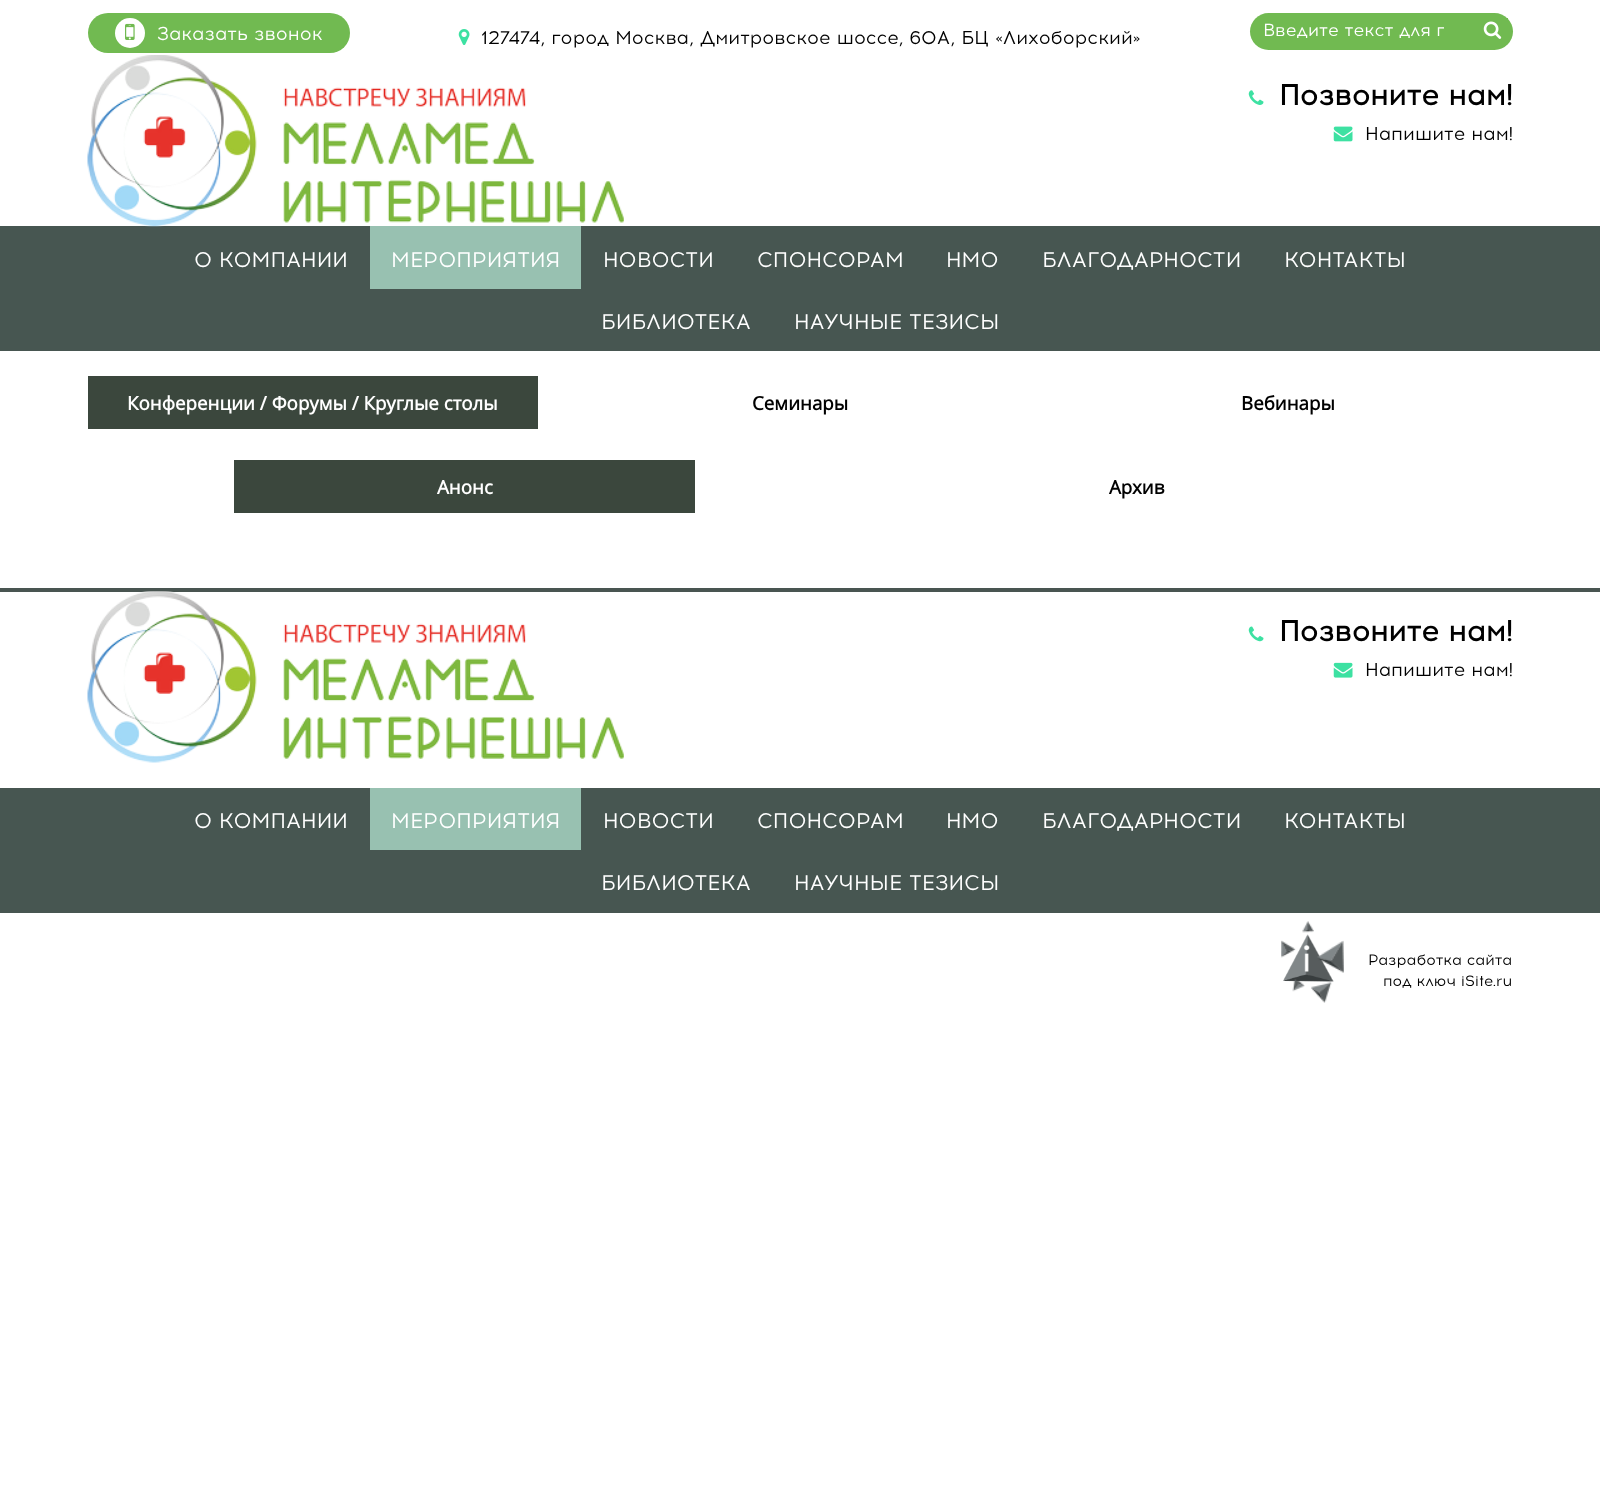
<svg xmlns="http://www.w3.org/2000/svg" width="1600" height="1499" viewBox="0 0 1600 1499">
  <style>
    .t1 { font: 18.75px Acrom; fill: #fff; }
    .t2 { font: 18.75px Acrom; fill: #000; }
    .t3 { font: 17.5px Acrom; fill: #fff; }
    .t4 { font: bold 28.75px Acrom; fill: #000; }
    .t5 { font: 21.25px Acrom; fill: #fff; }
    .t6 { font: bold 18.75px Open Sans; fill: #fff; }
    .t7 { font: bold 18.75px Open Sans; fill: #000; }
    .t8 { font: 15px Acrom; fill: #000; }
  </style>
  <defs>
    <clipPath id="clip1"><rect x="1263" y="20" width="181" height="21"/></clipPath>
  </defs>
  <rect width="100%" height="100%" fill="#fff"/>
  <rect x="88" y="13" width="262" height="40" rx="20" fill="#71ba51"/>
  <circle cx="130" cy="33" r="15" fill="#fff"/>
  <image x="125" y="23" width="10" height="17" href="images/1.png"/>
  <text x="157" y="40" class="t1">Заказать звонок</text>
  <image x="458" y="29" width="12" height="16" href="images/2.png"/>
  <text x="481" y="44" class="t2">127474, город Москва, Дмитровское шоссе, 60А, БЦ «Лихоборский»</text>
  <rect x="1250" y="13" width="263" height="37" rx="18.5" fill="#71ba51"/>
  <g clip-path="url(#clip1)">
    <text x="1263" y="36" class="t3">Введите текст для п</text>
  </g>
  <rect x="1507" y="18" width="1" height="1" fill="#71ba51"/>
  <image x="1483" y="21" width="19" height="18" href="images/3.png"/>
  <rect x="0" y="226" width="1600" height="125" fill="#475651"/>
  <image x="87" y="55" width="537" height="172" href="images/4.png"/>
  <image x="1248" y="90" width="16" height="15" href="images/5.png"/>
  <text x="1279" y="105" class="t4">Позвоните нам!</text>
  <image x="1333" y="126" width="20" height="16" href="images/6.png"/>
  <text x="1365" y="140" class="t2">Напишите нам!</text>
  <text x="194" y="267" class="t5">О КОМПАНИИ</text>
  <rect x="370" y="226" width="211" height="63" fill="#98c1b1"/>
  <text x="391" y="267" class="t5">МЕРОПРИЯТИЯ</text>
  <text x="603" y="267" class="t5">НОВОСТИ</text>
  <text x="757" y="267" class="t5">СПОНСОРАМ</text>
  <text x="946" y="267" class="t5">НМО</text>
  <text x="1042" y="267" class="t5">БЛАГОДАРНОСТИ</text>
  <text x="1284" y="267" class="t5">КОНТАКТЫ</text>
  <text x="601" y="329" class="t5">БИБЛИОТЕКА</text>
  <text x="794" y="329" class="t5">НАУЧНЫЕ ТЕЗИСЫ</text>
  <rect x="88" y="376" width="450" height="53" fill="#3b473d"/>
  <text x="127" y="410" class="t6">Конференции / Форумы / Круглые столы</text>
  <text x="752" y="410" class="t7">Семинары</text>
  <text x="1241" y="410" class="t7">Вебинары</text>
  <rect x="234" y="460" width="461" height="53" fill="#3b473d"/>
  <text x="437" y="494" class="t6">Анонс</text>
  <text x="1109" y="494" class="t7">Архив</text>
  <rect x="0" y="588" width="1600" height="4" fill="#495551"/>
  <image x="87" y="591" width="537" height="172" href="images/7.png"/>
  <image x="1248" y="626" width="16" height="16" href="images/8.png"/>
  <text x="1279" y="641" class="t4">Позвоните нам!</text>
  <image x="1333" y="662" width="20" height="16" href="images/9.png"/>
  <text x="1365" y="676" class="t2">Напишите нам!</text>
  <rect x="0" y="788" width="1600" height="125" fill="#475651"/>
  <text x="194" y="828" class="t5">О КОМПАНИИ</text>
  <rect x="370" y="788" width="211" height="62" fill="#98c1b1"/>
  <text x="391" y="828" class="t5">МЕРОПРИЯТИЯ</text>
  <text x="603" y="828" class="t5">НОВОСТИ</text>
  <text x="757" y="828" class="t5">СПОНСОРАМ</text>
  <text x="946" y="828" class="t5">НМО</text>
  <text x="1042" y="828" class="t5">БЛАГОДАРНОСТИ</text>
  <text x="1284" y="828" class="t5">КОНТАКТЫ</text>
  <text x="601" y="890" class="t5">БИБЛИОТЕКА</text>
  <text x="794" y="890" class="t5">НАУЧНЫЕ ТЕЗИСЫ</text>
  <image x="1302" y="921" width="12" height="12" href="images/10.png"/>
  <image x="1283" y="934" width="51" height="48" href="images/11.png"/>
  <image x="1281" y="940" width="15" height="18" href="images/12.png"/>
  <image x="1317" y="940" width="27" height="33" href="images/13.png"/>
  <image x="1292" y="979" width="13" height="13" href="images/14.png"/>
  <image x="1311" y="982" width="21" height="21" href="images/15.png"/>
  <text x="1368" y="965" class="t8">Разработка сайта</text>
  <text x="1383" y="986" class="t8">под ключ iSite.ru</text>
</svg>
